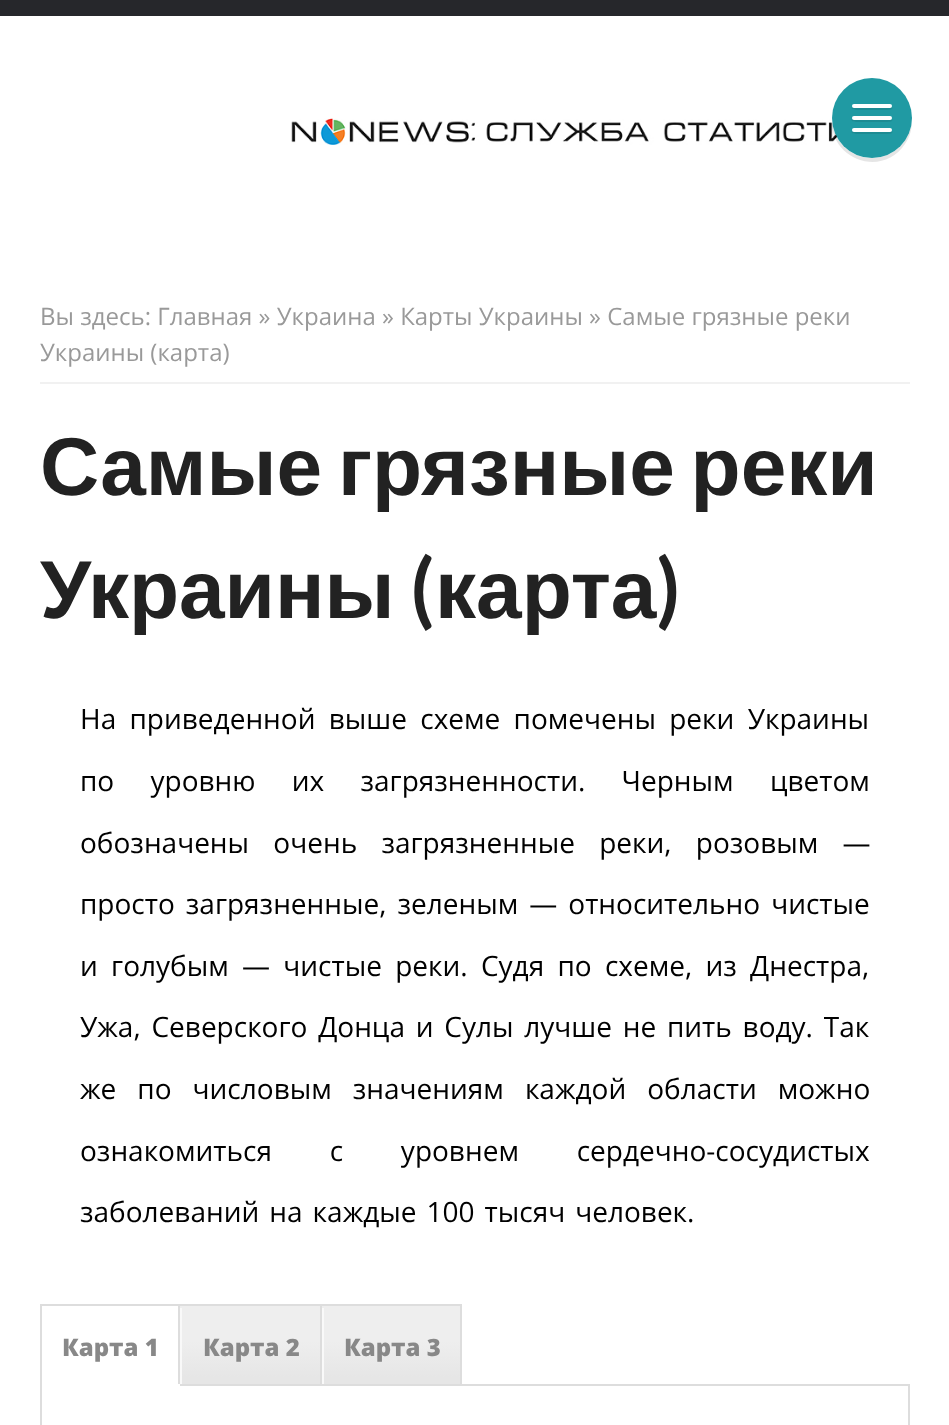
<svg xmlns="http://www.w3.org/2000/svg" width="949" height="1425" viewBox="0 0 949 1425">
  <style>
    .t1 { font: 24px Open Sans; fill: #999; }
    .t2 { font: bold 82px Liberation Sans; fill: #222; }
    .t3 { font: bold 82px Lato; fill: #222; }
    .t4 { font: 28px Open Sans; fill: #000; }
    .t5 { font: 800 24px Open Sans; fill: #888; }
  </style>
  <defs>
    <linearGradient id="g1" gradientUnits="userSpaceOnUse" x1="180" y1="1384" x2="180" y2="1306"><stop offset="0.09" stop-color="#e6e6e6"/><stop offset="0.55" stop-color="#eee"/></linearGradient>
    <linearGradient id="g2" gradientUnits="userSpaceOnUse" x1="322" y1="1384" x2="322" y2="1306"><stop offset="0.09" stop-color="#e6e6e6"/><stop offset="0.55" stop-color="#eee"/></linearGradient>
  </defs>
  <rect width="100%" height="100%" fill="#fff"/>
  <rect x="0" y="0" width="949" height="16" fill="#26272b"/>
  <image x="291" y="118" width="614" height="27" href="images/1.png"/>
  <path d="M832 120C830 160 883 178 905 144C910 137 912 129 912 120C911 141 893 158 872 158C851 158 833 141 832 120Z" fill="#0000001a"/>
  <circle cx="872" cy="118" r="40" fill="#209aa3"/>
  <path d="M852 107C850 110 856 110 860 110H884C888 110 894 110 892 107L890 108H854Z" fill="#1d8b93"/>
  <rect x="852" y="104" width="40" height="4" rx="2" fill="#fff"/>
  <path d="M852 119C850 122 856 122 860 122H884C888 122 894 122 892 119L890 120H854Z" fill="#1d8b93"/>
  <rect x="852" y="116" width="40" height="4" rx="2" fill="#fff"/>
  <path d="M852 131C850 134 856 134 860 134H884C888 134 894 134 892 131L890 132H854Z" fill="#1d8b93"/>
  <rect x="852" y="128" width="40" height="4" rx="2" fill="#fff"/>
  <rect x="40" y="382" width="870" height="2" fill="#f1f1f1"/>
  <text x="40" y="325" class="t1">Вы здесь: Главная » Украина » Карты Украины » Самые грязные реки</text>
  <text x="40" y="361" class="t1">Украины (карта)</text>
  <text x="40" y="495" word-spacing="-7" class="t2">Самые грязные реки</text>
  <text x="40" y="618" class="t2">Украины</text>
  <text x="410" y="618" class="t3">(</text>
  <text x="435" y="618" class="t2">карта</text>
  <text x="656" y="618" class="t3">)</text>
  <text x="80" y="729" word-spacing="6" class="t4">На приведенной выше схеме помечены реки Украины</text>
  <text x="80" y="791" word-spacing="29" class="t4">по уровню их загрязненности. Черным цветом</text>
  <text x="80" y="853" word-spacing="17" class="t4">обозначены очень загрязненные реки, розовым —</text>
  <text x="80" y="914" word-spacing="3.75" class="t4">просто загрязненные, зеленым — относительно чистые</text>
  <text x="80" y="976" word-spacing="6" class="t4">и голубым — чистые реки. Судя по схеме, из Днестра,</text>
  <text x="80" y="1037" word-spacing="3.5" class="t4">Ужа, Северского Донца и Сулы лучше не пить воду. Так</text>
  <text x="80" y="1099" word-spacing="13.75" class="t4">же по числовым значениям каждой области можно</text>
  <text x="80" y="1161" word-spacing="50.5" class="t4">ознакомиться с уровнем сердечно-сосудистых</text>
  <text x="80" y="1222" word-spacing="2.75" class="t4">заболеваний на каждые 100 тысяч человек.</text>
  <rect x="462" y="1384" width="448" height="2" fill="#ddd"/>
  <rect x="40" y="1304" width="422" height="2" fill="#ddd"/>
  <rect x="178" y="1304" width="2" height="82" fill="#ddd"/>
  <rect x="178" y="1384" width="2" height="2" fill="#fff"/>
  <rect x="40" y="1304" width="2" height="121" fill="#ddd"/>
  <text x="62" y="1356" class="t5">Карта 1</text>
  <rect x="180" y="1306" width="140" height="78" fill="url(#g1)"/>
  <rect x="320" y="1304" width="2" height="82" fill="#ddd"/>
  <rect x="180" y="1384" width="142" height="2" fill="#ddd"/>
  <rect x="180" y="1308" width="2" height="76" fill="#f9f9f9"/>
  <text x="203" y="1356" class="t5">Карта 2</text>
  <rect x="322" y="1306" width="138" height="78" fill="url(#g2)"/>
  <rect x="460" y="1304" width="2" height="82" fill="#ddd"/>
  <rect x="322" y="1384" width="140" height="2" fill="#ddd"/>
  <rect x="322" y="1308" width="2" height="76" fill="#f9f9f9"/>
  <text x="344" y="1356" class="t5">Карта 3</text>
  <rect x="908" y="1386" width="2" height="39" fill="#ddd"/>
</svg>
